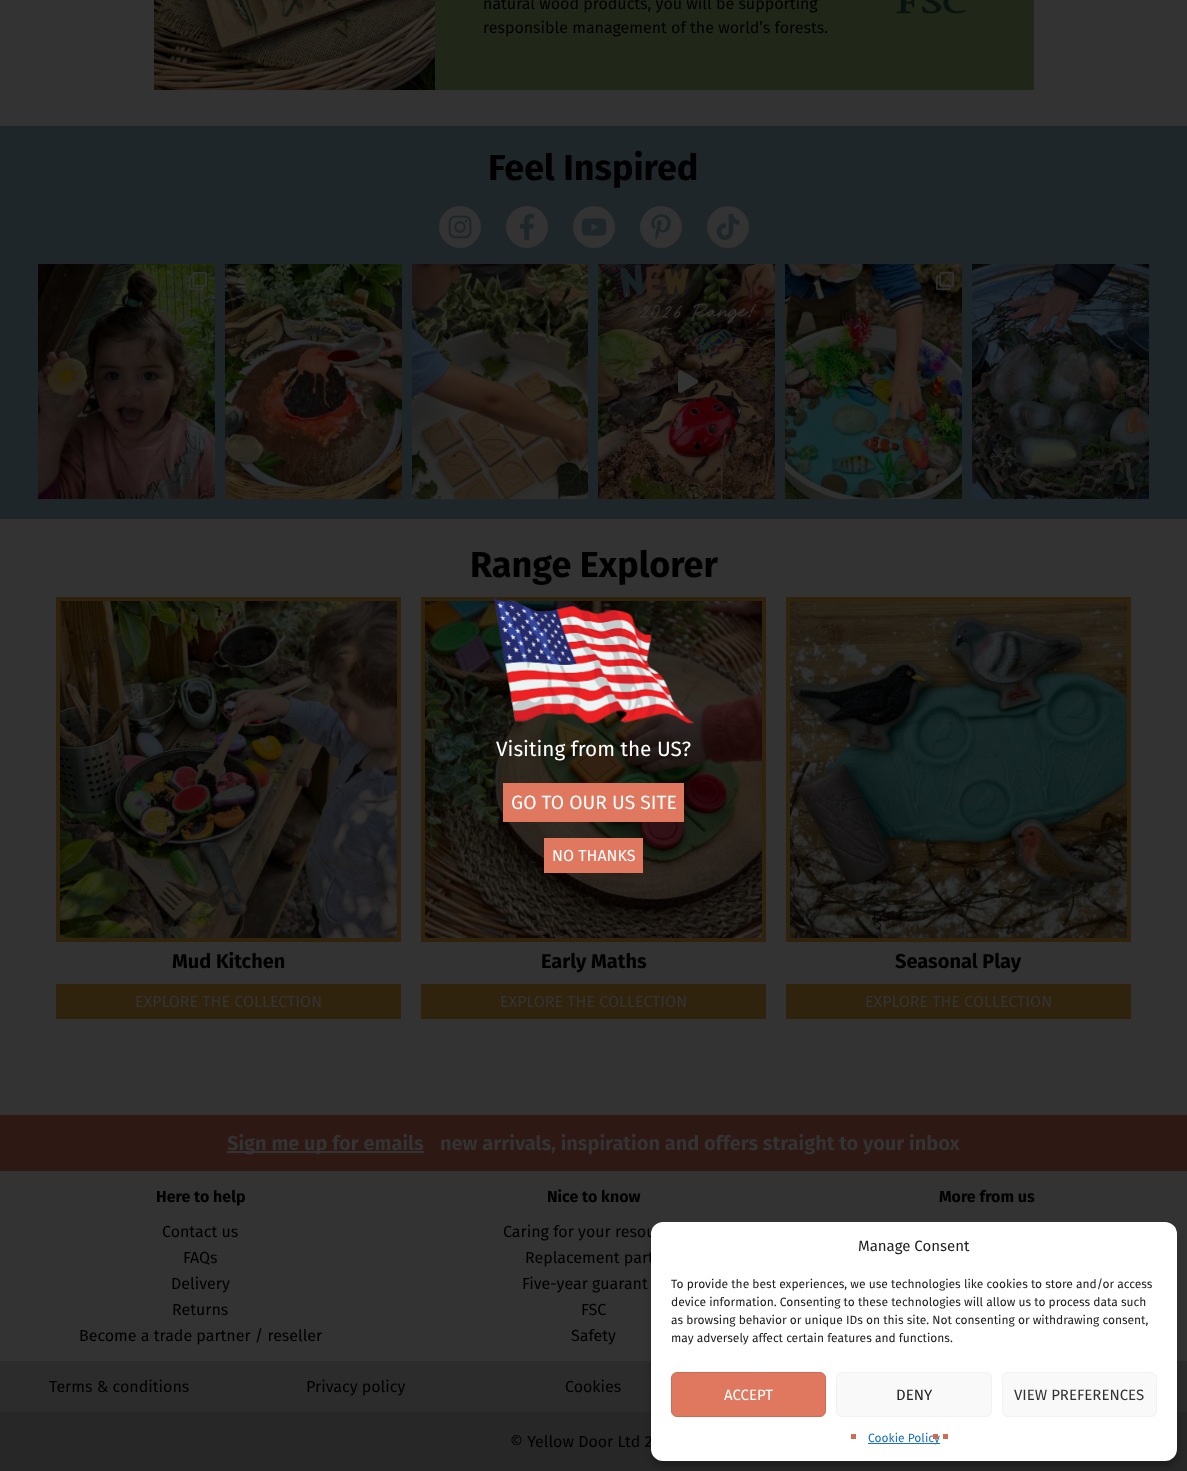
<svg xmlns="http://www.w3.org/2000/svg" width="1187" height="1471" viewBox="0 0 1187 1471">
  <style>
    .t1 { font: 16px Fira Sans; fill: #000; }
    .t2 { font: bold 36px Fira Sans; fill: #000; }
    .t3 { font: bold 20px Fira Sans; fill: #000; }
    .t4 { font: 16px Fira Sans; fill: #333; }
    .t5 { font: bold 20px Fira Sans; fill: #333; }
    .t6 { font: bold 16px Fira Sans; fill: #000; }
    .t7 { font: 20.75px Fira Sans; fill: #fff; }
    .t8 { font: 19.25px Fira Sans; fill: #fff; }
    .t9 { font: 16px Fira Sans; fill: #fff; }
    .t10 { font: 15px Fira Sans; fill: #222; }
    .t11 { font: 12px Fira Sans; fill: #222; }
    .t12 { font: 15px Fira Sans; fill: #fff; }
    .t13 { font: 15px Fira Sans; fill: #333; }
    .t14 { font: 12px Fira Sans; fill: #1e73be; }
  </style>
  <rect width="100%" height="100%" fill="#333"/>
  <rect x="435" y="0" width="599" height="90" fill="#202718"/>
  <image x="154" y="0" width="281" height="90" href="images/1.png"/>
  <text x="483" y="9" class="t1">natural wood products, you will be supporting</text>
  <text x="483" y="33" class="t1">responsible management of the world’s forests.</text>
  <image x="896" y="0" width="70" height="14" href="images/2.png"/>
  <rect x="0" y="126" width="1187" height="393" fill="#1f2629"/>
  <text x="488" y="180" class="t2">Feel Inspired</text>
  <circle cx="460" cy="227" r="21" fill="#333"/>
  <image x="448" y="215" width="24" height="24" href="images/3.png"/>
  <circle cx="527" cy="227" r="21" fill="#333"/>
  <image x="520" y="214" width="14" height="26" href="images/4.png"/>
  <circle cx="594" cy="227" r="21" fill="#333"/>
  <image x="581" y="218" width="26" height="18" href="images/5.png"/>
  <circle cx="661" cy="227" r="21" fill="#333"/>
  <image x="651" y="214" width="20" height="26" href="images/6.png"/>
  <circle cx="728" cy="227" r="21" fill="#333"/>
  <image x="716" y="214" width="24" height="26" href="images/7.png"/>
  <image x="38" y="264" width="177" height="235" href="images/8.png"/>
  <image x="189" y="272" width="18" height="18" href="images/9.png"/>
  <image x="225" y="264" width="177" height="235" href="images/10.png"/>
  <image x="412" y="264" width="176" height="235" href="images/11.png"/>
  <image x="598" y="264" width="177" height="235" href="images/12.png"/>
  <image x="678" y="370" width="20" height="23" href="images/13.png"/>
  <image x="785" y="264" width="177" height="235" href="images/14.png"/>
  <image x="936" y="272" width="18" height="18" href="images/15.png"/>
  <image x="972" y="264" width="177" height="235" href="images/16.png"/>
  <text x="470" y="577" class="t2">Range Explorer</text>
  <rect x="58" y="599" width="341" height="341" fill="none" stroke="#30230d" stroke-width="4"/>
  <image x="60" y="601" width="337" height="337" href="images/17.png"/>
  <text x="172" y="968" class="t3">Mud Kitchen</text>
  <rect x="56" y="984" width="345" height="35" fill="#30230d"/>
  <text x="135" y="1007" class="t4">EXPLORE THE COLLECTION</text>
  <rect x="423" y="599" width="341" height="341" fill="none" stroke="#30230d" stroke-width="4"/>
  <image x="425" y="601" width="337" height="337" href="images/18.png"/>
  <text x="541" y="968" class="t3">Early Maths</text>
  <rect x="421" y="984" width="345" height="35" fill="#30230d"/>
  <text x="500" y="1007" class="t4">EXPLORE THE COLLECTION</text>
  <rect x="788" y="599" width="341" height="341" fill="none" stroke="#30230d" stroke-width="4"/>
  <image x="790" y="601" width="337" height="337" href="images/19.png"/>
  <text x="895" y="968" class="t3">Seasonal Play</text>
  <rect x="786" y="984" width="345" height="35" fill="#30230d"/>
  <text x="865" y="1007" class="t4">EXPLORE THE COLLECTION</text>
  <rect x="0" y="1115" width="1187" height="56" fill="#2d1813"/>
  <rect x="227" y="1151" width="197" height="2" fill="#333"/>
  <text x="227" y="1150" class="t5">Sign me up for emails</text>
  <text x="440" y="1150" class="t5">new arrivals, inspiration and offers straight to your inbox</text>
  <text x="156" y="1202" class="t6">Here to help</text>
  <text x="162" y="1237" class="t1">Contact us</text>
  <text x="183" y="1263" class="t1">FAQs</text>
  <text x="171" y="1289" class="t1">Delivery</text>
  <text x="172" y="1315" class="t1">Returns</text>
  <text x="79" y="1341" class="t1">Become a trade partner / reseller</text>
  <text x="547" y="1202" class="t6">Nice to know</text>
  <text x="503" y="1237" class="t1">Caring for your resou</text>
  <text x="525" y="1263" class="t1">Replacement part</text>
  <text x="522" y="1289" class="t1">Five-year guarant</text>
  <text x="581" y="1315" class="t1">FSC</text>
  <text x="571" y="1341" class="t1">Safety</text>
  <text x="939" y="1202" class="t6">More from us</text>
  <rect x="0" y="1361" width="1187" height="51" fill="#2c2c2c"/>
  <text x="49" y="1392" class="t1">Terms &amp; conditions</text>
  <text x="306" y="1392" class="t1">Privacy policy</text>
  <text x="565" y="1392" class="t1">Cookies</text>
  <rect x="0" y="1412" width="1187" height="59" fill="#272727"/>
  <text x="510" y="1447" class="t1">© Yellow Door Ltd 2</text>
  <image x="493" y="598" width="201" height="126" href="images/20.png"/>
  <text x="496" y="756" class="t7">Visiting from the US?</text>
  <rect x="503" y="783" width="181" height="39" fill="#e07860"/>
  <text x="511" y="809" class="t8">GO TO OUR US SITE</text>
  <rect x="544" y="838" width="99" height="35" fill="#e07860"/>
  <text x="552" y="861" class="t9">NO THANKS</text>
  <rect x="651" y="1228" width="526" height="239" rx="12" fill="#0000003b" filter="blur(3px)"/>
  <rect x="651" y="1222" width="526" height="239" rx="12" fill="#fff"/>
  <text x="858" y="1251" class="t10">Manage Consent</text>
  <text x="671" y="1288" class="t11">To provide the best experiences, we use technologies like cookies to store and/or access</text>
  <text x="671" y="1306" class="t11">device information. Consenting to these technologies will allow us to process data such</text>
  <text x="671" y="1324" class="t11">as browsing behavior or unique IDs on this site. Not consenting or withdrawing consent,</text>
  <text x="671" y="1342" class="t11">may adversely affect certain features and functions.</text>
  <rect x="671.5" y="1372.5" width="154" height="44" rx="5.5" fill="#e07860" stroke="#cb6c56"/>
  <text x="724" y="1400" class="t12">ACCEPT</text>
  <rect x="836.5" y="1372.5" width="155" height="44" rx="5.5" fill="#f9f9f9" stroke="#f2f2f2"/>
  <text x="896" y="1400" class="t10">DENY</text>
  <rect x="1002.5" y="1372.5" width="154" height="44" rx="5.5" fill="#f9f9f9" stroke="#f2f2f2"/>
  <text x="1014" y="1400" class="t13">VIEW PREFERENCES</text>
  <rect x="851" y="1434" width="5" height="5" fill="#cb6c56"/>
  <rect x="868" y="1443" width="72" height="1" fill="#1e73be"/>
  <text x="868" y="1442" class="t14">Cookie Policy</text>
  <rect x="933" y="1434" width="5" height="5" fill="#cb6c56"/>
  <rect x="943" y="1434" width="5" height="5" fill="#cb6c56"/>
</svg>
